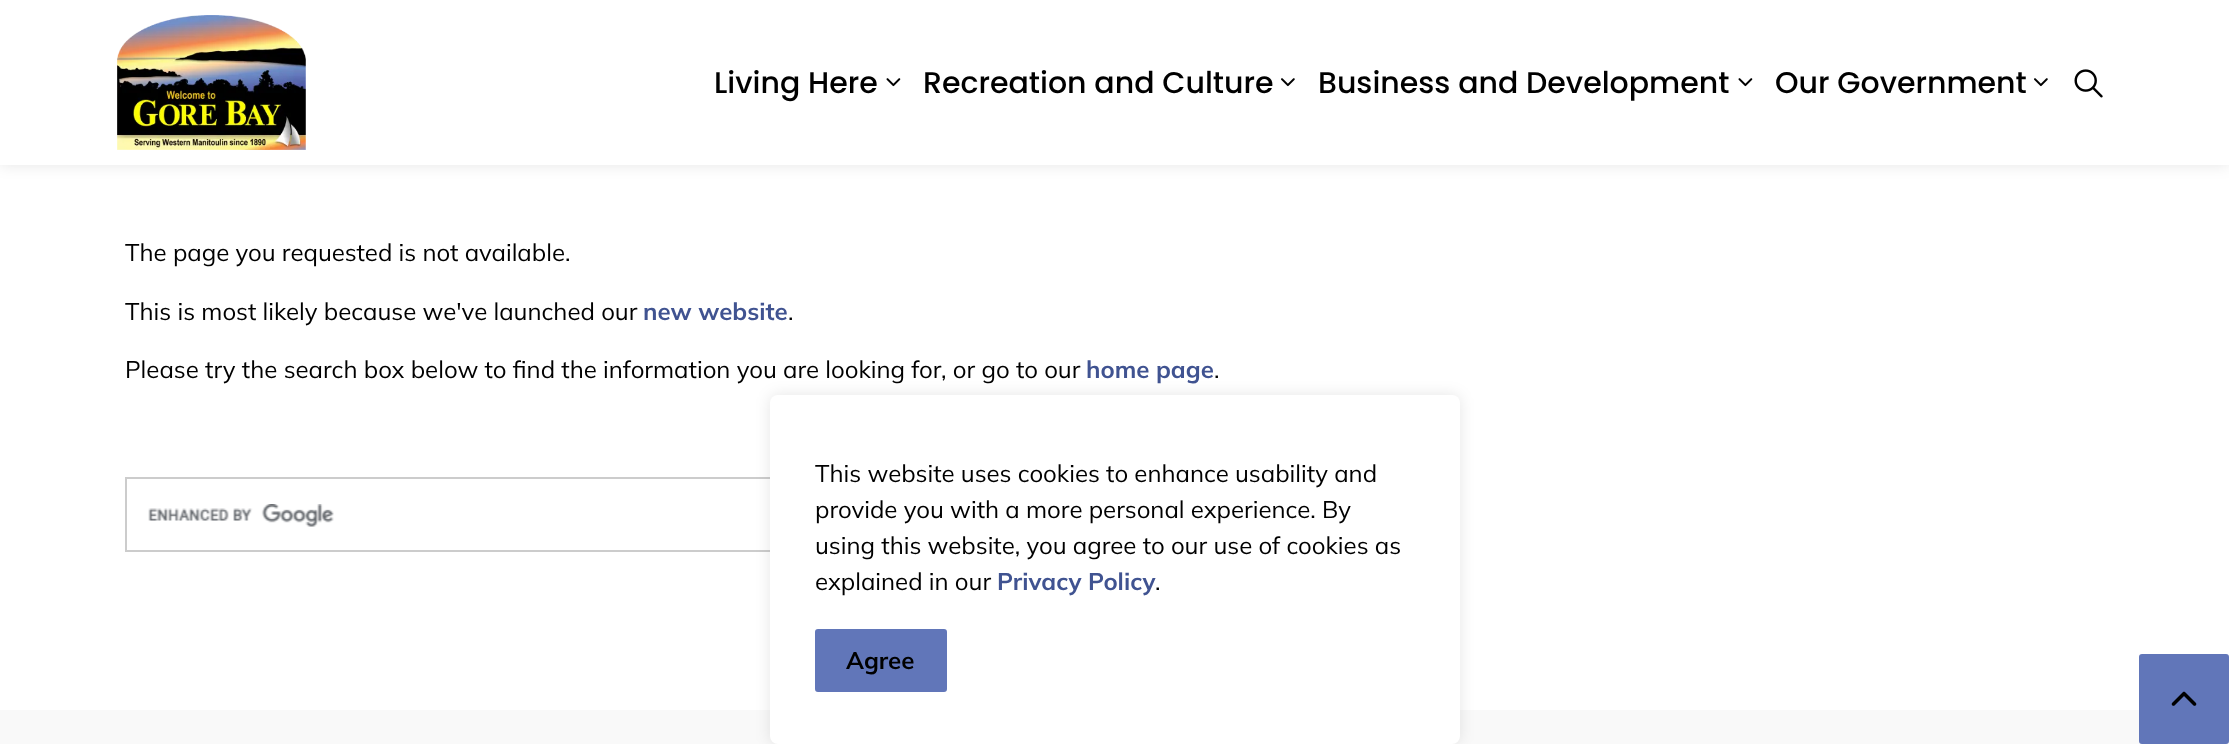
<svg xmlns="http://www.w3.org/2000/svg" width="2229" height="744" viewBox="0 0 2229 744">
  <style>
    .t1 { font: 500 30px Poppins; fill: #000; }
    .t2 { font: 24px Mulish; fill: #000; }
    .t3 { font: bold 24px Mulish; fill: #405391; }
    .t4 { font: bold 24px Mulish; fill: #000; }
  </style>
  <rect width="100%" height="100%" fill="#fff"/>
  <rect x="0" y="0" width="2229" height="165" fill="#0000001a" filter="blur(7.5px)"/>
  <rect x="0" y="0" width="2229" height="165" fill="#fff"/>
  <image x="117" y="15" width="189" height="135" href="images/1.png"/>
  <text x="714" y="93" class="t1">Living Here</text>
  <image x="886" y="78" width="15" height="9" href="images/2.png"/>
  <text x="923" y="93" class="t1">Recreation and Culture</text>
  <image x="1281" y="78" width="14" height="9" href="images/3.png"/>
  <text x="1318" y="93" class="t1">Business and Development</text>
  <image x="1738" y="78" width="15" height="9" href="images/2.png"/>
  <text x="1775" y="93" class="t1">Our Government</text>
  <image x="2034" y="78" width="14" height="9" href="images/3.png"/>
  <image x="2074" y="69" width="29" height="29" href="images/4.png"/>
  <text x="125" y="261" class="t2">The page you requested is not available.</text>
  <text x="125" y="320" class="t2">This is most likely because we've launched our</text>
  <text x="643" y="320" class="t3">new website</text>
  <text x="788" y="320" class="t2">.</text>
  <text x="125" y="378" class="t2">Please try the search box below to find the information you are looking for, or go to our</text>
  <text x="1086" y="378" class="t3">home page</text>
  <text x="1214" y="378" class="t2">.</text>
  <image x="148" y="504" width="186" height="23" href="images/5.png"/>
  <rect x="126" y="478" width="976" height="73" fill="none" stroke="#ccc" stroke-width="2"/>
  <rect x="0" y="710" width="2229" height="34" fill="#f9f9f9"/>
  <rect x="2140" y="655" width="88" height="88" rx="2" fill="#6176b9" stroke="#6176b9" stroke-width="2"/>
  <image x="2171" y="691" width="26" height="15" href="images/6.png"/>
  <rect x="770" y="395" width="690" height="349" rx="8" fill="#0000001a" filter="blur(7.5px)"/>
  <rect x="770" y="395" width="690" height="349" rx="8" fill="#fff"/>
  <text x="815" y="482" class="t2">This website uses cookies to enhance usability and</text>
  <text x="815" y="518" class="t2">provide you with a more personal experience. By</text>
  <text x="815" y="554" class="t2">using this website, you agree to our use of cookies as</text>
  <text x="815" y="590" class="t2">explained in our</text>
  <text x="997" y="590" class="t3">Privacy Policy</text>
  <text x="1155" y="590" class="t2">.</text>
  <rect x="816" y="630" width="130" height="61" rx="2" fill="#6176b9" stroke="#6176b9" stroke-width="2"/>
  <text x="846" y="669" class="t4">Agree</text>
</svg>
